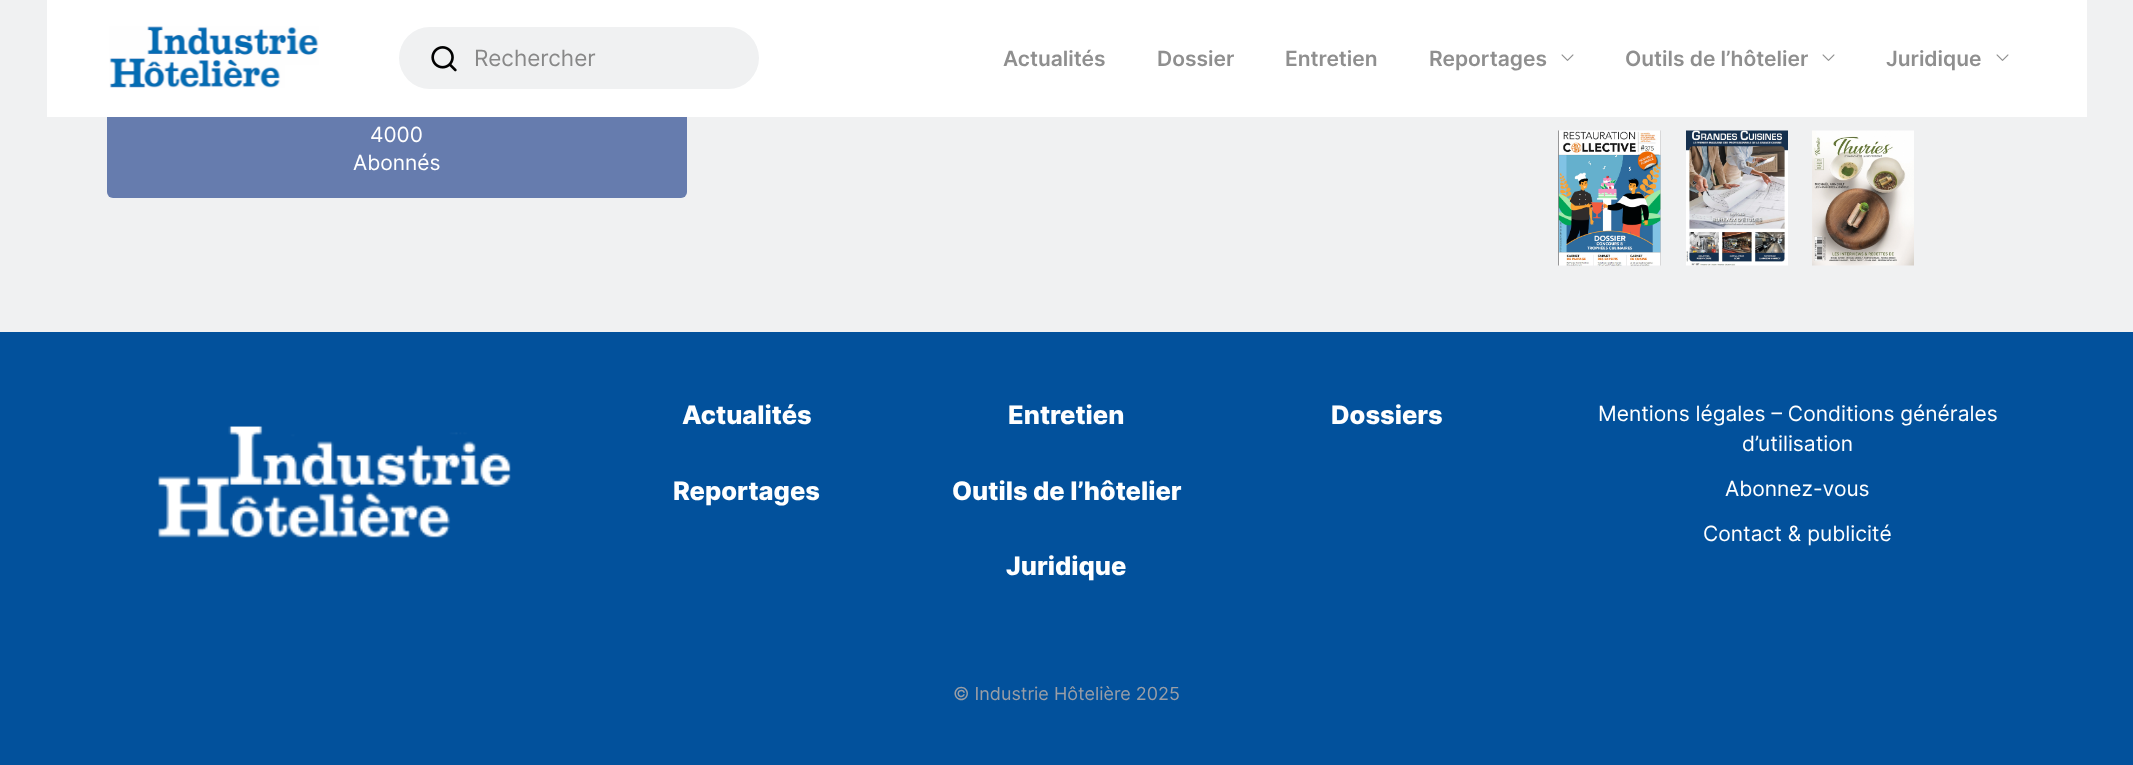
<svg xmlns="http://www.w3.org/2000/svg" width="2133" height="765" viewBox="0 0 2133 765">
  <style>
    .t1 { font: 22.5px Inter; fill: #888; }
    .t2 { font: 600 21px Inter; fill: #8f8f8f; }
    .t3 { font: 21px Inter; fill: #fff; }
    .t4 { font: 800 25.5px Inter; fill: #fff; }
    .t5 { font: 18px Inter; fill: #9a9ea6; }
  </style>
  <rect width="100%" height="100%" fill="#02519c"/>
  <rect x="0" y="0" width="2133" height="332" fill="#f0f1f2"/>
  <rect x="107" y="45" width="580" height="153" rx="6" fill="#667cae"/>
  <rect x="47" y="0" width="2040" height="117" fill="#fff"/>
  <image x="109" y="26" width="210" height="62" href="images/1.png"/>
  <rect x="399" y="27" width="360" height="62" rx="31" fill="#f0f1f2"/>
  <image x="431" y="46" width="26" height="26" href="images/2.png"/>
  <text x="474" y="66" class="t1">Rechercher</text>
  <text x="1003" y="66" class="t2">Actualités</text>
  <text x="1157" y="66" class="t2">Dossier</text>
  <text x="1285" y="66" class="t2">Entretien</text>
  <text x="1429" y="66" class="t2">Reportages</text>
  <image x="1561" y="54" width="13" height="7" href="images/3.png"/>
  <text x="1625" y="66" class="t2">Outils de l’hôtelier</text>
  <image x="1822" y="54" width="13" height="7" href="images/3.png"/>
  <text x="1886" y="66" class="t2">Juridique</text>
  <image x="1996" y="54" width="13" height="7" href="images/3.png"/>
  <text x="370" y="142" class="t3">4000</text>
  <text x="353" y="170" class="t3">Abonnés</text>
  <image x="1558" y="130" width="103" height="136" href="images/4.png"/>
  <image x="1686" y="130" width="102" height="136" href="images/5.png"/>
  <image x="1812" y="130" width="102" height="136" href="images/6.png"/>
  <image x="158" y="426" width="353" height="112" href="images/7.png"/>
  <text x="682" y="424" class="t4">Actualités</text>
  <text x="1008" y="424" class="t4">Entretien</text>
  <text x="1331" y="424" class="t4">Dossiers</text>
  <text x="673" y="500" class="t4">Reportages</text>
  <text x="952" y="500" class="t4">Outils de l’hôtelier</text>
  <text x="1006" y="575" class="t4">Juridique</text>
  <text x="1598" y="421" class="t3">Mentions légales – Conditions générales</text>
  <text x="1742" y="451" class="t3">d’utilisation</text>
  <text x="1725" y="496" class="t3">Abonnez-vous</text>
  <text x="1703" y="541" class="t3">Contact &amp; publicité</text>
  <text x="953" y="700" class="t5">© Industrie Hôtelière 2025</text>
</svg>
